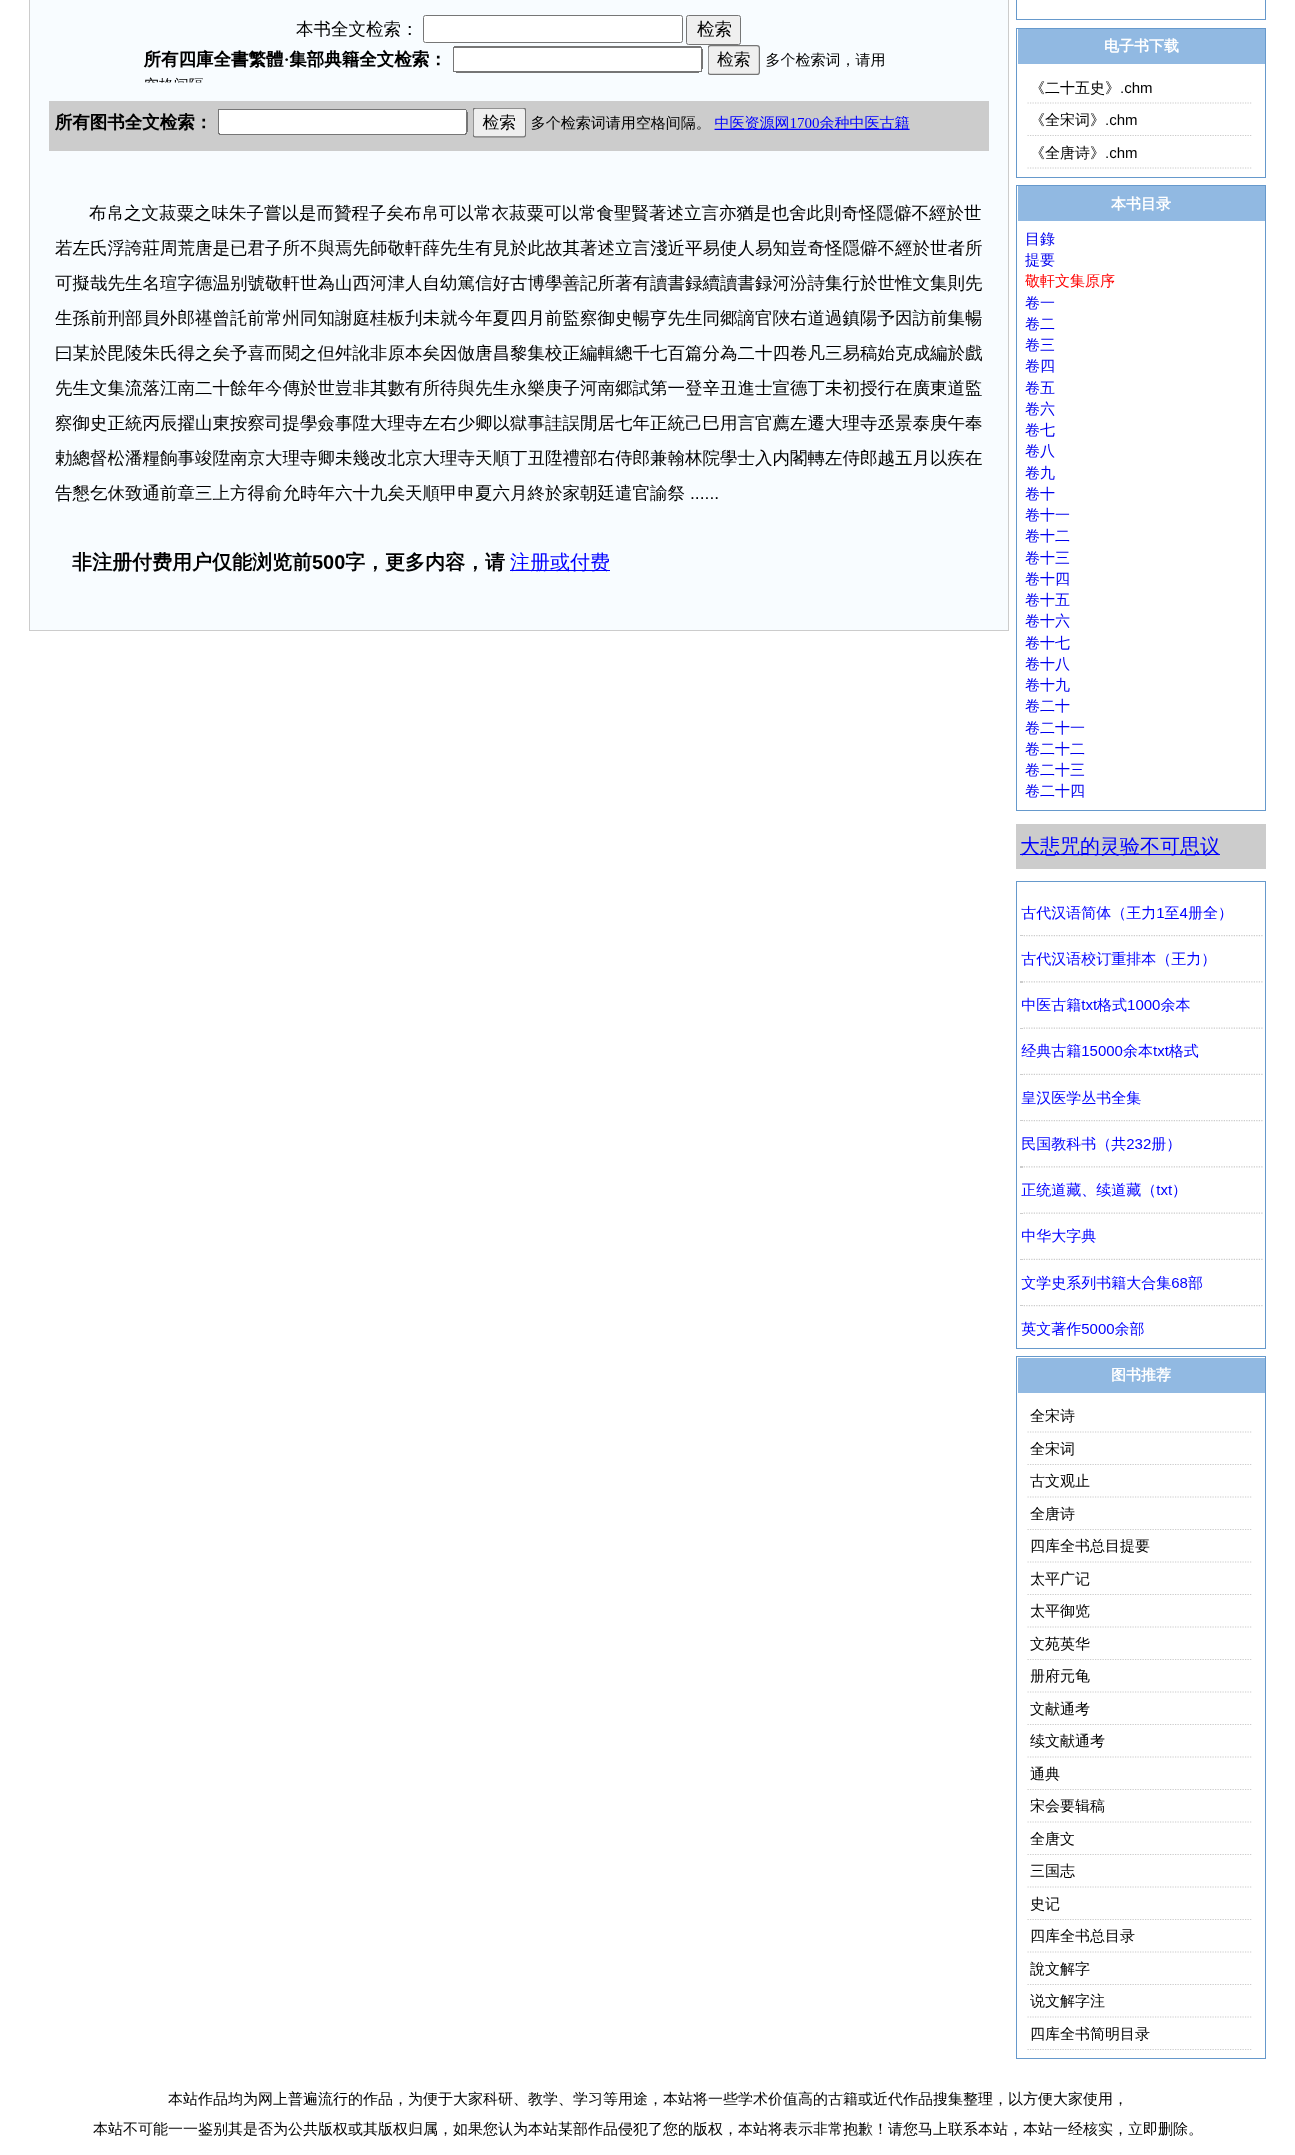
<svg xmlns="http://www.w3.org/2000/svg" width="1295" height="2155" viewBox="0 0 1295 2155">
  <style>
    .t1 { font: 500 17.5px WenQuanYi Zen Hei; fill: #000; }
    .t2 { font: 17.5px Liberation Sans; fill: #000; }
    .t3 { font: bold 20px WenQuanYi Zen Hei; fill: #000; }
    .t4 { font: bold 20px Liberation Sans; fill: #000; }
    .t5 { font: 500 20px WenQuanYi Zen Hei; fill: #00f; }
    .t6 { font: bold 15px WenQuanYi Zen Hei; fill: #fff; }
    .t7 { font: 500 15px WenQuanYi Zen Hei; fill: #000; }
    .t8 { font: 15px Liberation Sans; fill: #000; }
    .t9 { font: 500 15px WenQuanYi Zen Hei; fill: #00e; }
    .t10 { font: 500 15px WenQuanYi Zen Hei; fill: #f00; }
  </style>
  <rect width="100%" height="100%" fill="#fff"/>
  <rect x="29.5" y="-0.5" width="979" height="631" fill="#f8fcff" stroke="#ccc"/>
  <text x="296" y="35" class="t1">本书全文检索：</text>
  <rect x="423.5" y="15.5" width="259" height="27" rx="2" fill="#fff" stroke="#767676"/>
  <rect x="686.5" y="15.5" width="54" height="29" rx="2" fill="#efefef" stroke="#767676"/>
  <text x="697" y="35" class="t1">检索</text>
  <image x="143" y="45" width="741" height="38" href="images/1.png"/>
  <rect x="49" y="101" width="940" height="50" fill="#ccc"/>
  <image x="55" y="108" width="855" height="30" href="images/2.png"/>
  <text x="89" y="219" class="t1">布帛之文菽粟之味朱子嘗以是而贊程子矣布帛可以常衣菽粟可以常食聖賢著述立言亦猶是也舍此則奇怪隱僻不經於世</text>
  <text x="55" y="254" class="t1">若左氏浮誇莊周荒唐是已君子所不與焉先師敬軒薛先生有見於此故其著述立言淺近平易使人易知豈奇怪隱僻不經於世者所</text>
  <text x="55" y="289" class="t1">可擬哉先生名瑄字德温别號敬軒世為山西河津人自幼篤信好古博學善記所著有讀書録續讀書録河汾詩集行於世惟文集則先</text>
  <text x="55" y="324" class="t1">生孫前刑部員外郎禥曾託前常州同知謝庭桂板刋未就今年夏四月前監察御史暢亨先生同郷謫官陜右道過鎮陽予因訪前集暢</text>
  <text x="55" y="359" class="t1">曰某於毘陵朱氏得之矣予喜而閱之但舛訛非原本矣因倣唐昌黎集校正編輯總千七百篇分為二十四卷凡三易稿始克成編於戲</text>
  <text x="55" y="394" class="t1">先生文集流落江南二十餘年今傳於世豈非其數有所待與先生永樂庚子河南郷試第一登辛丑進士宣德丁未初授行在廣東道監</text>
  <text x="55" y="429" class="t1">察御史正統丙辰擢山東按察司提學僉事陞大理寺左右少卿以獄事詿誤閒居七年正統己巳用言官薦左遷大理寺丞景泰庚午奉</text>
  <text x="55" y="464" class="t1">勅總督松潘糧餉事竣陞南京大理寺卿未幾改北京大理寺天順丁丑陞禮部右侍郎兼翰林院學士入内閣轉左侍郎越五月以疾在</text>
  <text x="55" y="499" class="t1">告懇乞休致通前章三上方得俞允時年六十九矣天順甲申夏六月終於家朝廷遣官諭祭</text>
  <text x="690" y="499" class="t2">......</text>
  <text x="72" y="569" class="t3">非注册付费用户仅能浏览前</text>
  <text x="312" y="569" class="t4">500</text>
  <text x="345" y="569" class="t3">字，更多内容，请</text>
  <rect x="510" y="570" width="100" height="1" fill="#00f"/>
  <text x="510" y="569" class="t5">注册或付费</text>
  <rect x="1016.5" y="-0.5" width="249" height="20" fill="none" stroke="#69c"/>
  <rect x="1016.5" y="28.5" width="249" height="149" fill="none" stroke="#69c"/>
  <rect x="1018" y="29" width="247" height="35" fill="#91b9e2"/>
  <text x="1104" y="51" class="t6">电子书下载</text>
  <path d="M1027.5 103H1252.5" fill="none" stroke="#ccc" stroke-width="1.2" stroke-dasharray="1.25 1.25"/>
  <text x="1030" y="93" class="t7">《二十五史》</text>
  <text x="1120" y="93" class="t8">.chm</text>
  <path d="M1027.5 135.5H1252.5" fill="none" stroke="#ccc" stroke-width="1.2" stroke-dasharray="1.25 1.25"/>
  <text x="1030" y="125" class="t7">《全宋词》</text>
  <text x="1105" y="125" class="t8">.chm</text>
  <path d="M1027.5 168H1252.5" fill="none" stroke="#ccc" stroke-width="1.2" stroke-dasharray="1.25 1.25"/>
  <text x="1030" y="158" class="t7">《全唐诗》</text>
  <text x="1105" y="158" class="t8">.chm</text>
  <rect x="1016.5" y="185.5" width="249" height="625" fill="none" stroke="#69c"/>
  <rect x="1018" y="186" width="247" height="35" fill="#91b9e2"/>
  <text x="1111" y="209" class="t6">本书目录</text>
  <text x="1025" y="244" class="t9">目錄</text>
  <text x="1025" y="265" class="t9">提要</text>
  <text x="1025" y="286" class="t10">敬軒文集原序</text>
  <text x="1025" y="308" class="t9">卷一</text>
  <text x="1025" y="329" class="t9">卷二</text>
  <text x="1025" y="350" class="t9">卷三</text>
  <text x="1025" y="371" class="t9">卷四</text>
  <text x="1025" y="393" class="t9">卷五</text>
  <text x="1025" y="414" class="t9">卷六</text>
  <text x="1025" y="435" class="t9">卷七</text>
  <text x="1025" y="456" class="t9">卷八</text>
  <text x="1025" y="478" class="t9">卷九</text>
  <text x="1025" y="499" class="t9">卷十</text>
  <text x="1025" y="520" class="t9">卷十一</text>
  <text x="1025" y="541" class="t9">卷十二</text>
  <text x="1025" y="563" class="t9">卷十三</text>
  <text x="1025" y="584" class="t9">卷十四</text>
  <text x="1025" y="605" class="t9">卷十五</text>
  <text x="1025" y="626" class="t9">卷十六</text>
  <text x="1025" y="648" class="t9">卷十七</text>
  <text x="1025" y="669" class="t9">卷十八</text>
  <text x="1025" y="690" class="t9">卷十九</text>
  <text x="1025" y="711" class="t9">卷二十</text>
  <text x="1025" y="733" class="t9">卷二十一</text>
  <text x="1025" y="754" class="t9">卷二十二</text>
  <text x="1025" y="775" class="t9">卷二十三</text>
  <text x="1025" y="796" class="t9">卷二十四</text>
  <rect x="1016" y="824" width="250" height="45" fill="#ccc"/>
  <rect x="1020" y="854" width="200" height="1" fill="#00f"/>
  <text x="1020" y="853" class="t5">大悲咒的灵验不可思议</text>
  <rect x="1016.5" y="881.5" width="249" height="467" fill="none" stroke="#69c"/>
  <image x="1020" y="905" width="243" height="431" href="images/3.png"/>
  <rect x="1016.5" y="1356.5" width="249" height="702" fill="none" stroke="#69c"/>
  <rect x="1018" y="1358" width="247" height="35" fill="#91b9e2"/>
  <text x="1111" y="1380" class="t6">图书推荐</text>
  <path d="M1027.5 1432H1252.5" fill="none" stroke="#ccc" stroke-width="1.2" stroke-dasharray="1.25 1.25"/>
  <text x="1030" y="1421" class="t7">全宋诗</text>
  <path d="M1027.5 1464.5H1252.5" fill="none" stroke="#ccc" stroke-width="1.2" stroke-dasharray="1.25 1.25"/>
  <text x="1030" y="1454" class="t7">全宋词</text>
  <path d="M1027.5 1497H1252.5" fill="none" stroke="#ccc" stroke-width="1.2" stroke-dasharray="1.25 1.25"/>
  <text x="1030" y="1486" class="t7">古文观止</text>
  <path d="M1027.5 1529.5H1252.5" fill="none" stroke="#ccc" stroke-width="1.2" stroke-dasharray="1.25 1.25"/>
  <text x="1030" y="1519" class="t7">全唐诗</text>
  <path d="M1027.5 1562H1252.5" fill="none" stroke="#ccc" stroke-width="1.2" stroke-dasharray="1.25 1.25"/>
  <text x="1030" y="1551" class="t7">四库全书总目提要</text>
  <path d="M1027.5 1594.5H1252.5" fill="none" stroke="#ccc" stroke-width="1.2" stroke-dasharray="1.25 1.25"/>
  <text x="1030" y="1584" class="t7">太平广记</text>
  <path d="M1027.5 1627H1252.5" fill="none" stroke="#ccc" stroke-width="1.2" stroke-dasharray="1.25 1.25"/>
  <text x="1030" y="1616" class="t7">太平御览</text>
  <path d="M1027.5 1659.5H1252.5" fill="none" stroke="#ccc" stroke-width="1.2" stroke-dasharray="1.25 1.25"/>
  <text x="1030" y="1649" class="t7">文苑英华</text>
  <path d="M1027.5 1692H1252.5" fill="none" stroke="#ccc" stroke-width="1.2" stroke-dasharray="1.25 1.25"/>
  <text x="1030" y="1681" class="t7">册府元龟</text>
  <path d="M1027.5 1724.5H1252.5" fill="none" stroke="#ccc" stroke-width="1.2" stroke-dasharray="1.25 1.25"/>
  <text x="1030" y="1714" class="t7">文献通考</text>
  <path d="M1027.5 1757H1252.5" fill="none" stroke="#ccc" stroke-width="1.2" stroke-dasharray="1.25 1.25"/>
  <text x="1030" y="1746" class="t7">续文献通考</text>
  <path d="M1027.5 1789.5H1252.5" fill="none" stroke="#ccc" stroke-width="1.2" stroke-dasharray="1.25 1.25"/>
  <text x="1030" y="1779" class="t7">通典</text>
  <path d="M1027.5 1822H1252.5" fill="none" stroke="#ccc" stroke-width="1.2" stroke-dasharray="1.25 1.25"/>
  <text x="1030" y="1811" class="t7">宋会要辑稿</text>
  <path d="M1027.5 1854.5H1252.5" fill="none" stroke="#ccc" stroke-width="1.2" stroke-dasharray="1.25 1.25"/>
  <text x="1030" y="1844" class="t7">全唐文</text>
  <path d="M1027.5 1887H1252.5" fill="none" stroke="#ccc" stroke-width="1.2" stroke-dasharray="1.25 1.25"/>
  <text x="1030" y="1876" class="t7">三国志</text>
  <path d="M1027.5 1919.5H1252.5" fill="none" stroke="#ccc" stroke-width="1.2" stroke-dasharray="1.25 1.25"/>
  <text x="1030" y="1909" class="t7">史记</text>
  <path d="M1027.5 1952H1252.5" fill="none" stroke="#ccc" stroke-width="1.2" stroke-dasharray="1.25 1.25"/>
  <text x="1030" y="1941" class="t7">四库全书总目录</text>
  <path d="M1027.5 1984.5H1252.5" fill="none" stroke="#ccc" stroke-width="1.2" stroke-dasharray="1.25 1.25"/>
  <text x="1030" y="1974" class="t7">說文解字</text>
  <path d="M1027.5 2017H1252.5" fill="none" stroke="#ccc" stroke-width="1.2" stroke-dasharray="1.25 1.25"/>
  <text x="1030" y="2006" class="t7">说文解字注</text>
  <path d="M1027.5 2049.5H1252.5" fill="none" stroke="#ccc" stroke-width="1.2" stroke-dasharray="1.25 1.25"/>
  <text x="1030" y="2039" class="t7">四库全书简明目录</text>
  <text x="168" y="2104" class="t7">本站作品均为网上普遍流行的作品，为便于大家科研、教学、学习等用途，本站将一些学术价值高的古籍或近代作品搜集整理，以方便大家使用，</text>
  <text x="93" y="2134" class="t7">本站不可能一一鉴别其是否为公共版权或其版权归属，如果您认为本站某部作品侵犯了您的版权，本站将表示非常抱歉！请您马上联系本站，本站一经核实，立即删除。</text>
</svg>
